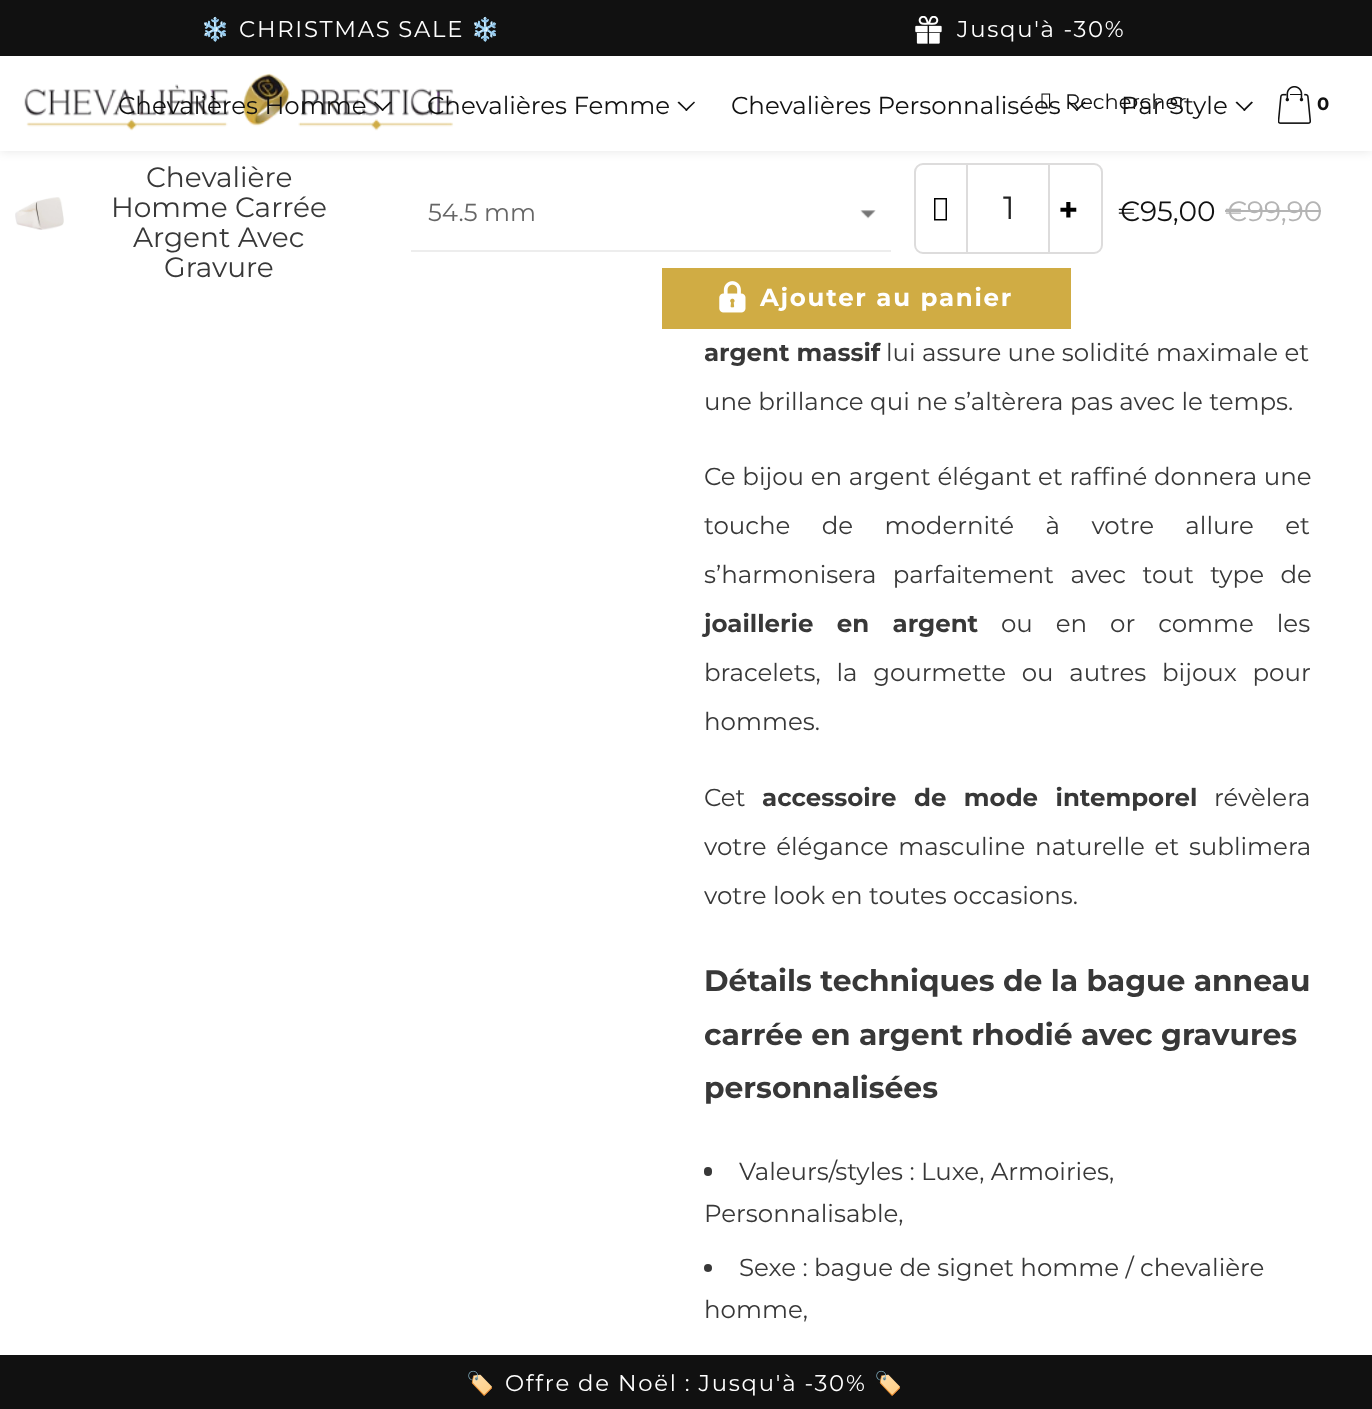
<svg xmlns="http://www.w3.org/2000/svg" width="1372" height="1409" viewBox="0 0 1372 1409">
  <style>
    .t1 { font: 22.75px Noto Color Emoji; letter-spacing: 1.75px; fill: #fff; }
    .t2 { font: 22.75px Montserrat; letter-spacing: 1.75px; fill: #fff; }
    .t3 { font: 21px Montserrat; fill: #111; }
    .t4 { font: bold 18px Montserrat; fill: #111; }
    .t5 { font: 24.5px Montserrat; fill: #111; }
    .t6 { font: 28px Montserrat; fill: #383838; }
    .t7 { font: 24.5px Montserrat; fill: #666; }
    .t8 { font: 32px Montserrat; fill: #222; }
    .t9 { font: 900 32px Noto Sans; fill: #000; }
    .t10 { font: 28px Montserrat; fill: #111; }
    .t11 { font: 28px Montserrat; fill: #b4b4b4; }
    .t12 { font: bold 24.5px Montserrat; letter-spacing: 1.75px; fill: #fff; }
    .t13 { font: bold 24.5px Montserrat; fill: #383838; }
    .t14 { font: 24.5px Montserrat; fill: #383838; }
    .t15 { font: bold 29.75px Montserrat; fill: #383838; }
  </style>
  <rect width="100%" height="100%" fill="#fff"/>
  <rect x="915" y="164" width="59" height="89" rx="8" fill="none" stroke="#dddcdc" stroke-width="2"/>
  <rect x="1042" y="164" width="60" height="89" rx="8" fill="none" stroke="#dddcdc" stroke-width="2"/>
  <rect x="967" y="164" width="82" height="89" fill="#fff" stroke="#dddcdc" stroke-width="2"/>
  <rect x="0" y="0" width="1372" height="151" fill="#0000001a" filter="blur(5.5px)"/>
  <rect x="0" y="56" width="1372" height="95" fill="#fff"/>
  <rect x="0" y="0" width="1372" height="56" fill="#111"/>
  <text x="201" y="37" class="t1">❄️</text>
  <text x="239" y="37" word-spacing="-1" class="t2">CHRISTMAS SALE</text>
  <text x="471" y="37" class="t1">❄️</text>
  <image x="915" y="16" width="27" height="28" href="images/1.png"/>
  <text x="957" y="37" class="t2">Jusqu'à -30%</text>
  <image x="24" y="73" width="431" height="58" href="images/2.png"/>
  <image x="1041" y="93" width="10" height="16" href="images/3.png"/>
  <text x="1065" y="109" class="t3">Rechercher</text>
  <image x="1278" y="86" width="33" height="38" href="images/4.png"/>
  <text x="1317" y="110" class="t4">0</text>
  <text x="118" y="114" class="t5">Chevalières Homme</text>
  <path d="M390 101.5L391.5 102.5L382.5 111L381.5 110Z" fill="#111"/>
  <path d="M375 101.5L384 110L382.5 111L374 102.5Z" fill="#111"/>
  <text x="427" y="114" class="t5">Chevalières Femme</text>
  <path d="M694 101.5L695 102.5L686.5 111L685 110Z" fill="#111"/>
  <path d="M679 101.5L687.5 110L686.5 111L677.5 102.5Z" fill="#111"/>
  <text x="731" y="114" class="t5">Chevalières Personnalisées</text>
  <path d="M1084.5 101.5L1085.5 102.5L1077 111L1075.5 110Z" fill="#111"/>
  <path d="M1069.5 101.5L1078 110L1077 111L1068 102.5Z" fill="#111"/>
  <text x="1121" y="114" class="t5">Par Style</text>
  <path d="M1251.5 101.5L1253 102.5L1244.5 111L1243 110Z" fill="#111"/>
  <path d="M1237 101.5L1245.5 110L1244.5 111L1235.5 102.5Z" fill="#111"/>
  <image x="15" y="197" width="49" height="33" href="images/5.png"/>
  <text x="146" y="187" class="t6">Chevalière</text>
  <text x="111" y="217" class="t6">Homme Carrée</text>
  <text x="133" y="247" class="t6">Argent Avec</text>
  <text x="164" y="277" class="t6">Gravure</text>
  <rect x="411" y="250" width="480" height="2" fill="#ededed"/>
  <text x="428" y="221" class="t7">54.5 mm</text>
  <image x="860" y="210" width="16" height="9" href="images/6.png"/>
  <path d="M934 220.5V198H947V220.5ZM935.5 219H945.5V199.5H935.5Z" fill="#000"/>
  <text x="1003" y="219" class="t8">1</text>
  <text x="1059" y="221" class="t9">+</text>
  <text x="1118" y="221" class="t10">€95,00</text>
  <text x="1225" y="221" class="t11">€99,90</text>
  <rect x="1225" y="210" width="96" height="2" fill="#b4b4b4"/>
  <rect x="662" y="268" width="409" height="61" fill="#d0ac44"/>
  <image x="719" y="281" width="27" height="32" href="images/7.png"/>
  <text x="760" y="306" class="t12">Ajouter au panier</text>
  <text x="704" y="361" class="t13">argent massif</text>
  <text x="886" y="361" class="t14">lui assure une solidité maximale et</text>
  <text x="704" y="410" class="t14">une brillance qui ne s’altèrera pas avec le temps.</text>
  <text x="704" y="485" word-spacing="0.25" class="t14">Ce bijou en argent élégant et raffiné donnera une</text>
  <text x="704" y="534" word-spacing="25" class="t14">touche de modernité à votre allure et</text>
  <text x="704" y="583" word-spacing="10" class="t14">s’harmonisera parfaitement avec tout type de</text>
  <text x="704" y="632" word-spacing="16.5" class="t13">joaillerie en argent</text>
  <text x="1001" y="632" word-spacing="16.5" class="t14">ou en or comme les</text>
  <text x="704" y="681" word-spacing="9.25" class="t14">bracelets, la gourmette ou autres bijoux pour</text>
  <text x="704" y="730" class="t14">hommes.</text>
  <text x="704" y="806" class="t14">Cet</text>
  <text x="762" y="806" word-spacing="10.5" class="t13">accessoire de mode intemporel</text>
  <text x="1214" y="806" class="t14">révèlera</text>
  <text x="704" y="855" word-spacing="3.25" class="t14">votre élégance masculine naturelle et sublimera</text>
  <text x="704" y="904" class="t14">votre look en toutes occasions.</text>
  <text x="704" y="991" class="t15">Détails techniques de la bague anneau</text>
  <text x="704" y="1045" class="t15">carrée en argent rhodié avec gravures</text>
  <text x="704" y="1098" class="t15">personnalisées</text>
  <rect x="704" y="1167" width="8" height="9" rx="4" fill="#383838"/>
  <text x="739" y="1180" class="t14">Valeurs/styles : Luxe, Armoiries,</text>
  <text x="704" y="1222" class="t14">Personnalisable,</text>
  <circle cx="708" cy="1268" r="4" fill="#383838"/>
  <text x="739" y="1276" class="t14">Sexe : bague de signet homme / chevalière</text>
  <text x="704" y="1318" class="t14">homme,</text>
  <rect x="0" y="1355" width="1372" height="54" fill="#111"/>
  <text x="466" y="1391" class="t1">🏷️</text>
  <text x="505" y="1391" word-spacing="-0.5" class="t2">Offre de Noël : Jusqu'à -30%</text>
  <text x="874" y="1391" class="t1">🏷️</text>
</svg>
